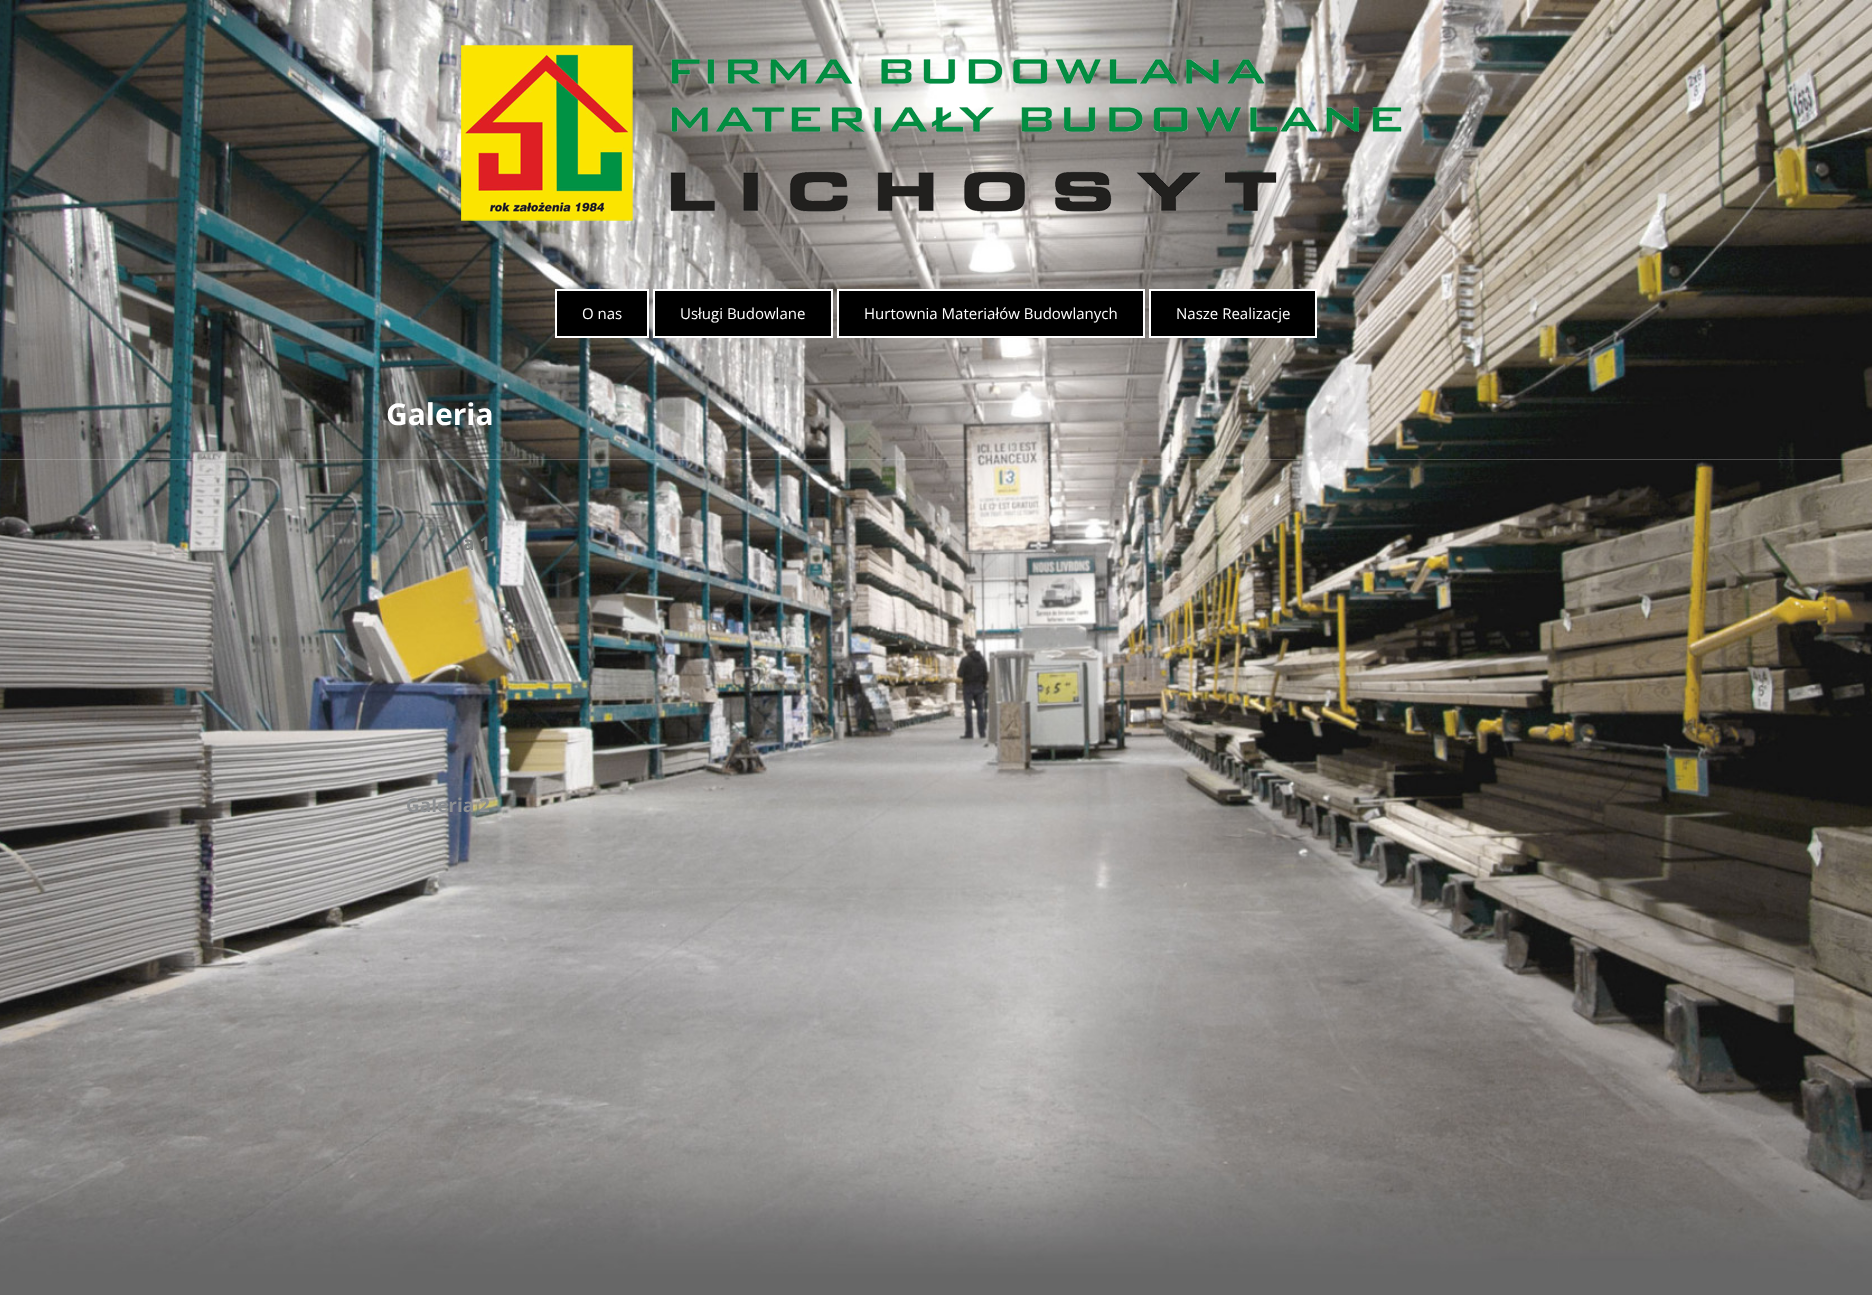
<svg xmlns="http://www.w3.org/2000/svg" width="1872" height="1295" viewBox="0 0 1872 1295">
  <style>
    .t1 { font: 15px Liberation Sans; letter-spacing: 2px; fill: #fff; }
    .t2 { font: 15px Open Sans; fill: #fff; }
    .t3 { font: bold 30px Open Sans; fill: #fff; }
    .t4 { font: bold 19px Open Sans; fill: #7d807f; }
    .t5 { font: bold 19px Open Sans; fill: #8c8f92; }
  </style>
  <rect width="100%" height="100%" fill="#fff"/>
  <image x="0" y="0" width="1872" height="1295" href="images/1.png"/>
  <image x="461" y="45" width="942" height="176" href="images/2.png"/>
  <text x="933" y="238" class="t1">.</text>
  <rect x="556" y="290" width="92" height="47" fill="#000" stroke="#fff" stroke-width="2"/>
  <text x="582" y="319" class="t2">O nas</text>
  <rect x="654" y="290" width="178" height="47" fill="#000" stroke="#fff" stroke-width="2"/>
  <text x="680" y="319" class="t2">Usługi Budowlane</text>
  <rect x="838" y="290" width="306" height="47" fill="#000" stroke="#fff" stroke-width="2"/>
  <text x="864" y="319" class="t2">Hurtownia Materiałów Budowlanych</text>
  <rect x="1150" y="290" width="166" height="47" fill="#000" stroke="#fff" stroke-width="2"/>
  <text x="1176" y="319" class="t2">Nasze Realizacje</text>
  <rect x="0" y="459" width="1872" height="1" fill="#cccccc4d"/>
  <text x="386" y="425" class="t3">Galeria</text>
  <text x="463" y="550" class="t4">a 1</text>
  <text x="406" y="812" class="t5">Galeria 2</text>
</svg>
